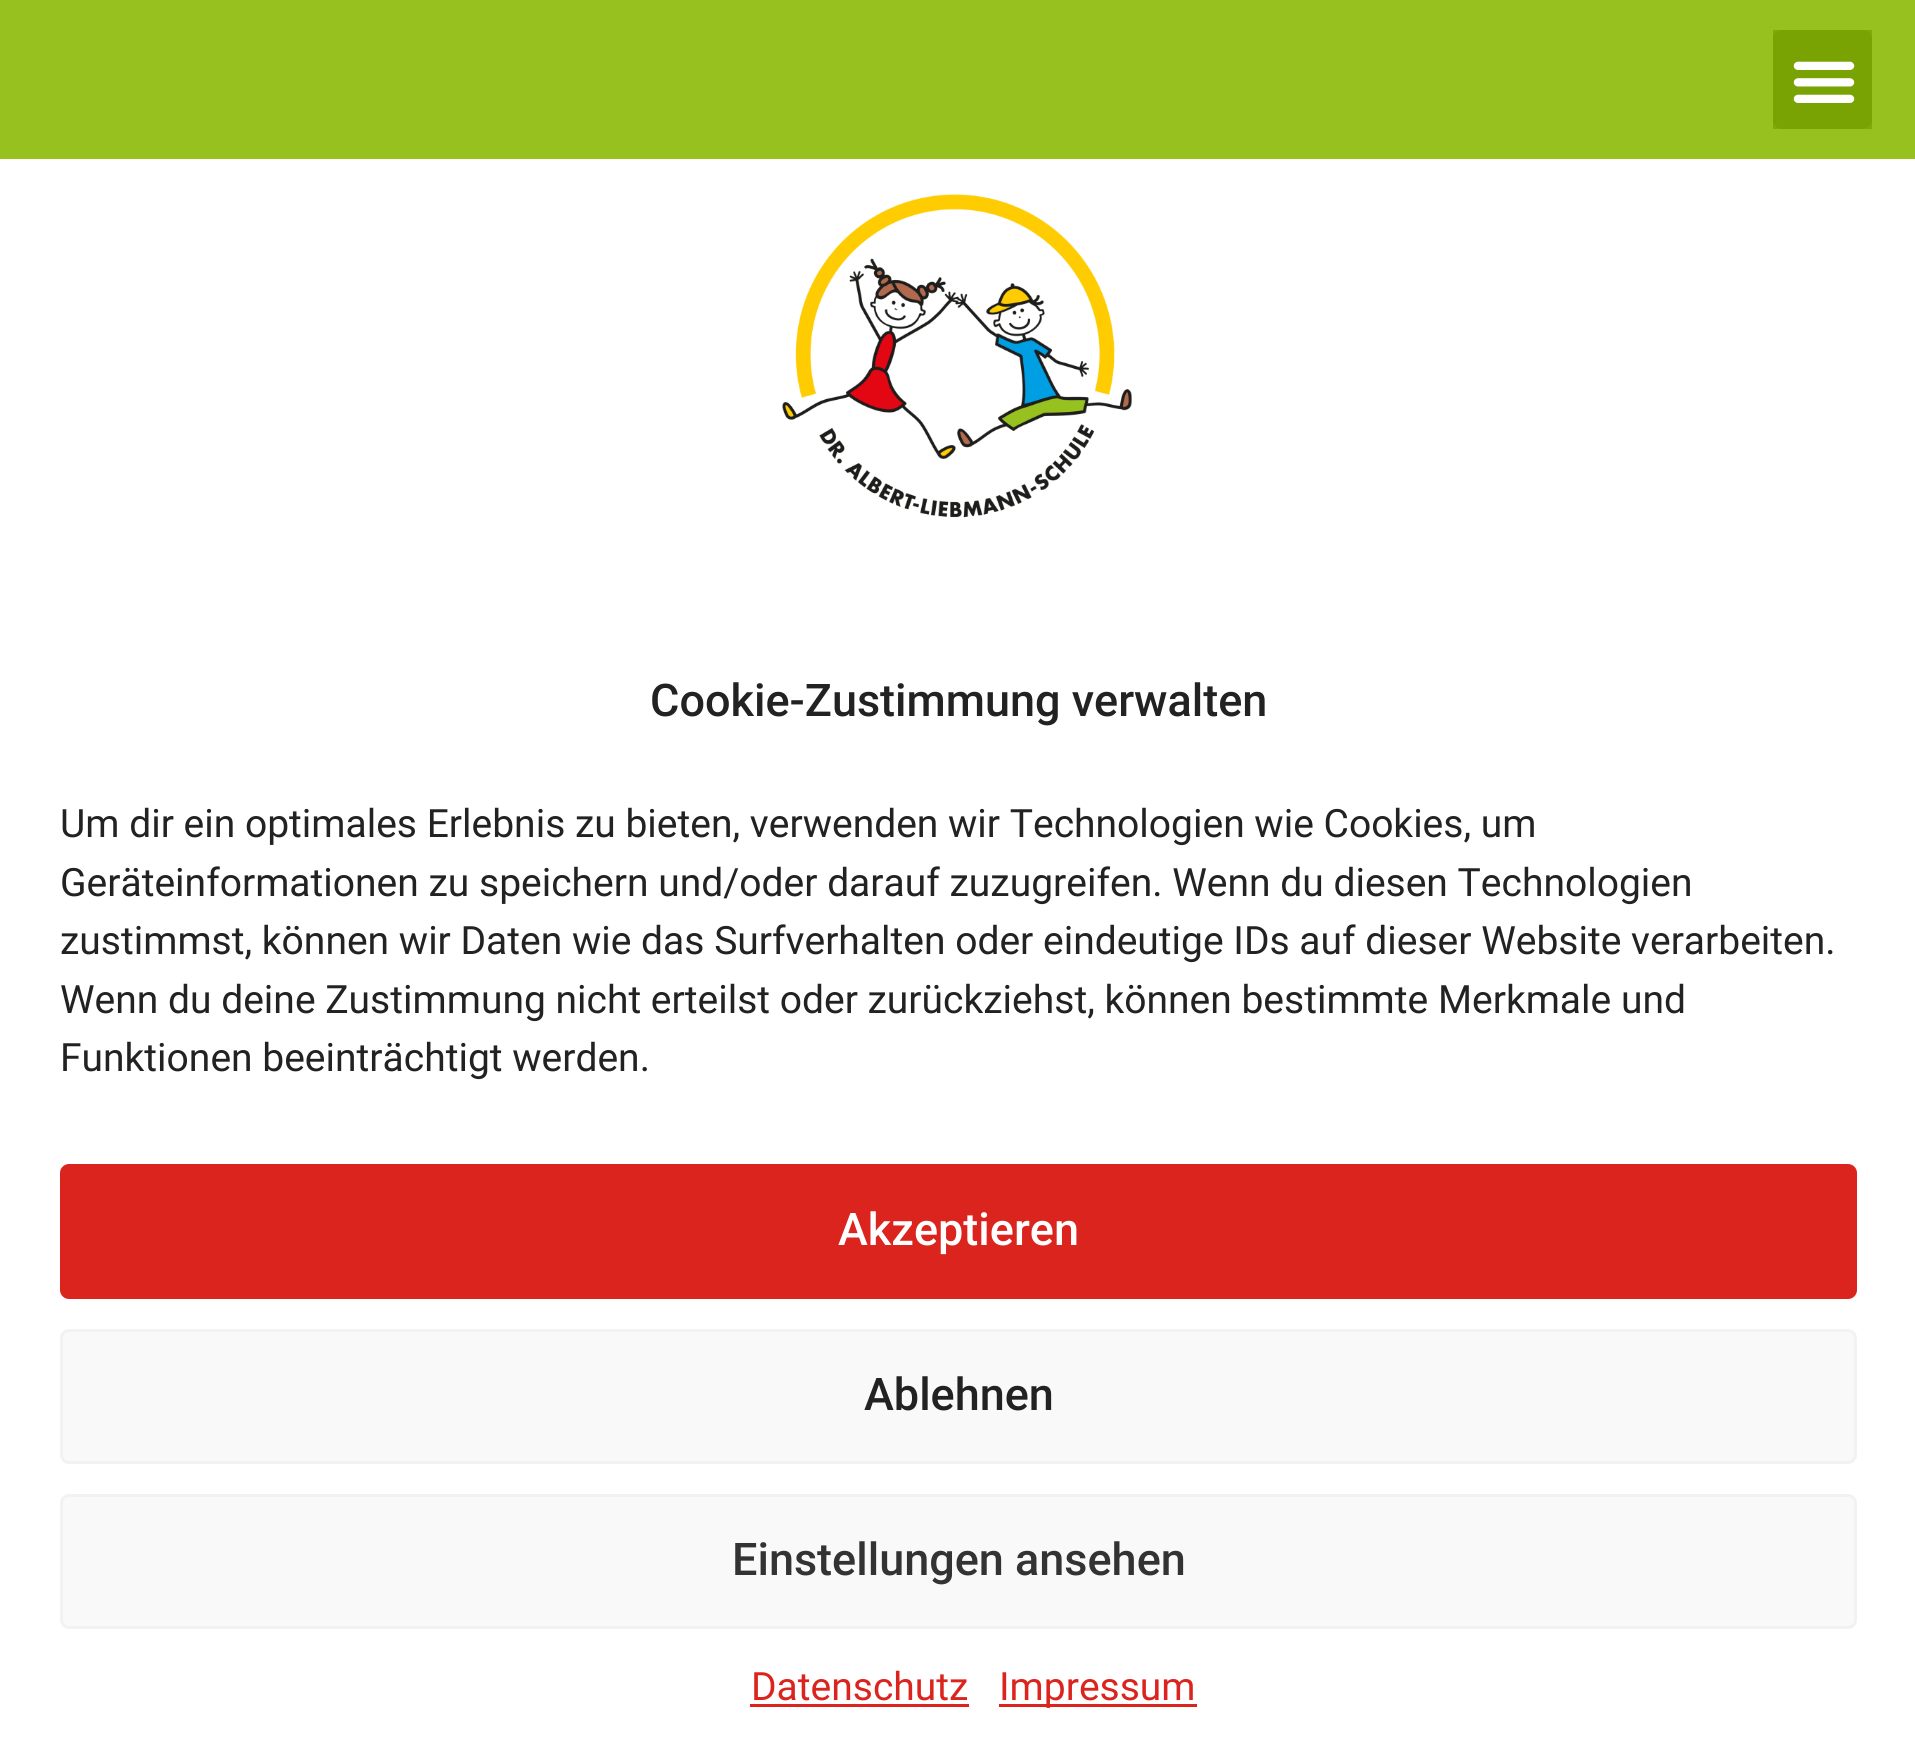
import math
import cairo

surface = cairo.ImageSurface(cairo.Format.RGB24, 1915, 1759)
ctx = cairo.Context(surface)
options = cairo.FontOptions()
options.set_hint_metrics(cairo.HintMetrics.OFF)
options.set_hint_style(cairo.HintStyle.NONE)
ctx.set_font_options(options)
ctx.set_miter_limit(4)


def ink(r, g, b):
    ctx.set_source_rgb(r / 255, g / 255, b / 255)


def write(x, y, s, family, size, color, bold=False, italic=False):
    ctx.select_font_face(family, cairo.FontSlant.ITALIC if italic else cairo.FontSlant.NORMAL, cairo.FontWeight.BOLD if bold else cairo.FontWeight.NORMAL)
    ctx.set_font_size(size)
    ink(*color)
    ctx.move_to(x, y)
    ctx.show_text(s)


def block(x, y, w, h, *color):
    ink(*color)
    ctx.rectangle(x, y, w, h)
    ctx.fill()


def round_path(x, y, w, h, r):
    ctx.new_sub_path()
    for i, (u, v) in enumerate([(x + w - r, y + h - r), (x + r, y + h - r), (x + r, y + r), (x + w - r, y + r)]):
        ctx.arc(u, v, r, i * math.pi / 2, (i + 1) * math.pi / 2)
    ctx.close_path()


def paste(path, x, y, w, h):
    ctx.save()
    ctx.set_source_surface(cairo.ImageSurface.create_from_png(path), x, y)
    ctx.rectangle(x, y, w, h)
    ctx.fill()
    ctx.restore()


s1 = dict(family="Roboto Medium", size=45, color=(34, 34, 34))
s2 = dict(family="Roboto", size=39, color=(34, 34, 34))
s3 = dict(family="Roboto Medium", size=45, color=(255, 255, 255))
s4 = dict(family="Roboto Medium", size=45, color=(51, 51, 51))
s5 = dict(family="Roboto", size=39, color=(218, 36, 29))

ink(255, 255, 255)
ctx.paint()
block(0, 0, 1915, 159, 150, 193, 31)
block(1773, 30, 99, 99, 127, 172, 2)
ink(121, 163, 2)
round_path(1773, 30, 99, 99, 9)
ctx.fill()
paste("pic1.png", 1793, 61, 62, 42)
paste("pic2.png", 782, 194, 350, 324)
write(650, 716, "Cookie-Zustimmung verwalten", **s1)
write(60, 837, "Um dir ein optimales Erlebnis zu bieten, verwenden wir Technologien wie Cookies, um", **s2)
write(60, 896, "Geräteinformationen zu speichern und/oder darauf zuzugreifen. Wenn du diesen Technologien", **s2)
write(60, 954, "zustimmst, können wir Daten wie das Surfverhalten oder eindeutige IDs auf dieser Website verarbeiten.", **s2)
write(60, 1013, "Wenn du deine Zustimmung nicht erteilst oder zurückziehst, können bestimmte Merkmale und", **s2)
write(60, 1071, "Funktionen beeinträchtigt werden.", **s2)
ink(218, 36, 29)
round_path(61.5, 1165.5, 1794, 132, 7.5)
ctx.fill_preserve()
ctx.set_line_width(3)
ctx.stroke()
write(838, 1245, "Akzeptieren", **s3)
ink(249, 249, 249)
round_path(61.5, 1330.5, 1794, 132, 7.5)
ctx.fill_preserve()
ink(242, 242, 242)
ctx.stroke()
write(864, 1410, "Ablehnen", **s1)
ink(249, 249, 249)
round_path(61.5, 1495.5, 1794, 132, 7.5)
ctx.fill_preserve()
ink(242, 242, 242)
ctx.stroke()
write(732, 1575, "Einstellungen ansehen", **s4)
write(751, 1700, "Datenschutz", **s5)
block(750, 1704, 219, 3, 218, 36, 29)
block(999, 1704, 198, 3, 218, 36, 29)
write(999, 1700, "Impressum", **s5)
surface.write_to_png("screenshot.png")
